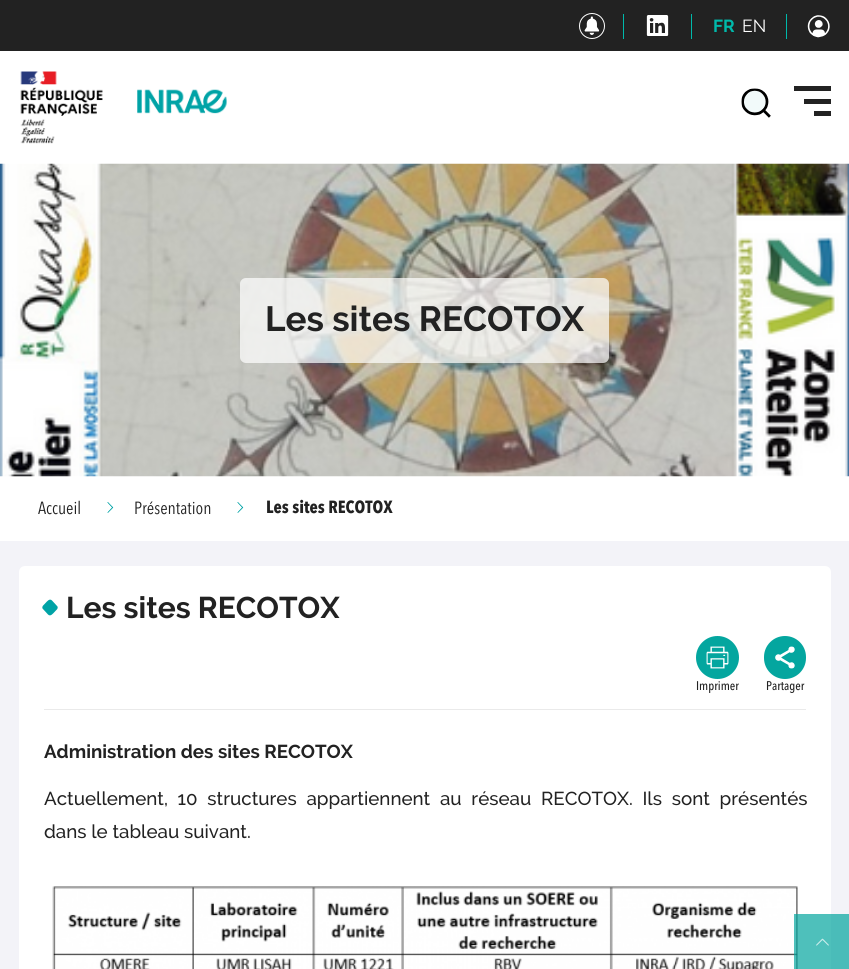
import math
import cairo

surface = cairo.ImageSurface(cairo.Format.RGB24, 849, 969)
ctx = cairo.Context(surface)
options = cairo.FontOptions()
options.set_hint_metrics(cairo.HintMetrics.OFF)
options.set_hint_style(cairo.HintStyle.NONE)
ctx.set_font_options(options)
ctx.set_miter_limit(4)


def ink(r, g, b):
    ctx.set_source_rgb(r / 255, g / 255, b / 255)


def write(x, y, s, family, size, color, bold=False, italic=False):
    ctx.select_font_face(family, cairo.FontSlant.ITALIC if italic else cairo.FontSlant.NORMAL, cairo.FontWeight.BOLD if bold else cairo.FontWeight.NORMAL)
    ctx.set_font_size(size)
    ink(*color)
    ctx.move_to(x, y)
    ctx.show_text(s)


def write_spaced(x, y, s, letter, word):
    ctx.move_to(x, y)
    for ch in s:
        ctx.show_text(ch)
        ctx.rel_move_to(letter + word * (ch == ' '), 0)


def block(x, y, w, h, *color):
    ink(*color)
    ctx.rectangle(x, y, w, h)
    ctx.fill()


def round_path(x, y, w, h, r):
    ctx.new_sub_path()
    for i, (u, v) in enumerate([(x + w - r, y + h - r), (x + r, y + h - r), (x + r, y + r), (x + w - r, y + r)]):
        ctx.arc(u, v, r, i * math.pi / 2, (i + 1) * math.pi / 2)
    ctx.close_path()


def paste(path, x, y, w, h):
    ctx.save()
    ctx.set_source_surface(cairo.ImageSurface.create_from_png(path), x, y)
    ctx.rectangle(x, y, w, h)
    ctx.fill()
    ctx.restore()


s1 = dict(family="Raleway", size=17.5, color=(0, 185, 171), bold=True)
s2 = dict(family="Raleway", size=17.5, color=(255, 255, 255))
s3 = dict(family="Raleway", size=35, color=(34, 34, 34), bold=True)
s4 = dict(family="Avenir Next", size=17.5, color=(34, 34, 34))
s5 = dict(family="Avenir Next", size=17.5, color=(34, 34, 34), bold=True)
s6 = dict(family="Raleway", size=30, color=(34, 34, 34), bold=True)
s7 = dict(family="Avenir Next Medium", size=12.5, color=(34, 34, 34))
s8 = dict(family="Raleway", size=18.75, color=(34, 34, 34), bold=True)
s9 = dict(family="Raleway Medium", size=18.75, color=(34, 34, 34))

ink(255, 255, 255)
ctx.paint()
block(0, 0, 849, 51, 34, 34, 34)
ctx.arc(592, 26, 12.5, 0, 2 * math.pi)
ink(255, 255, 255)
ctx.set_line_width(1)
ctx.stroke()
paste("pic1.png", 584, 16, 16, 19)
block(623, 14, 1, 25, 0, 185, 171)
paste("pic2.png", 646, 15, 23, 21)
block(691, 14, 1, 25, 0, 185, 171)
write(713, 32, "FR", **s1)
write(742, 32, "EN", **s2)
block(786, 14, 1, 25, 0, 185, 171)
paste("pic3.png", 807, 15, 23, 23)
paste("pic4.png", 20, 71, 207, 73)
paste("pic5.png", 741, 88, 30, 30)
block(794, 86, 37, 5, 34, 34, 34)
block(804, 99, 27, 5, 34, 34, 34)
block(814, 111, 17, 5, 34, 34, 34)
paste("pic6.png", 0, 163, 849, 314)
ctx.set_source_rgba(1, 1, 1, 0.7)
round_path(240, 278, 369, 85, 6)
ctx.fill()
write(265, 331, "Les sites RECOTOX", **s3)
write(38, 514, "Accueil", **s4)
paste("pic7.png", 107, 502, 7, 11)
write(134, 514, "Présentation", **s4)
paste("pic7.png", 237, 502, 7, 11)
write(266, 513, "Les sites RECOTOX", **s5)
block(0, 541, 849, 428, 243, 243, 248)
ink(255, 255, 255)
round_path(19, 566, 812, 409, 6)
ctx.fill()
block(44, 709, 762, 1, 234, 234, 234)
ink(0, 163, 166)
ctx.new_path()
ctx.move_to(52, 600.5)
ctx.line_to(57.5, 606.5)
ctx.curve_to(58.5, 609, 55.5, 610.5, 54.5, 612)
ctx.curve_to(53, 613.5, 50.5, 617, 48, 614.5)
ctx.line_to(42.5, 608.5)
ctx.curve_to(41.5, 606, 44.5, 604.5, 45.5, 603)
ctx.curve_to(47, 601.5, 49.5, 598, 52, 600.5)
ctx.close_path()
ctx.fill()
write(66, 618, "Les sites RECOTOX", **s6)
ink(4, 166, 159)
ctx.new_path()
ctx.arc(717.5, 657.5, 21.5, 0, 2 * math.pi)
ctx.fill()
paste("pic8.png", 706, 646, 23, 23)
write(696, 690, "Imprimer", **s7)
ink(4, 166, 159)
round_path(764, 636, 42, 43, 21)
ctx.fill()
paste("pic9.png", 775, 646, 20, 23)
write(766, 690, "Partager", **s7)
write(44, 758, "Administration des sites RECOTOX", **s8)
ctx.select_font_face("Raleway Medium")
write_spaced(44, 805, "Actuellement, 10 structures appartiennent au réseau RECOTOX. Ils sont présentés", 0, 5)
write(44, 838, "dans le tableau suivant.", **s9)
paste("pic10.png", 52, 886, 746, 83)
ctx.set_source_rgba(0.016, 0.651, 0.624, 0.7)
ctx.rectangle(794, 914, 55, 55)
ctx.fill()
paste("pic11.png", 816, 938, 13, 8)
surface.write_to_png("screenshot.png")
